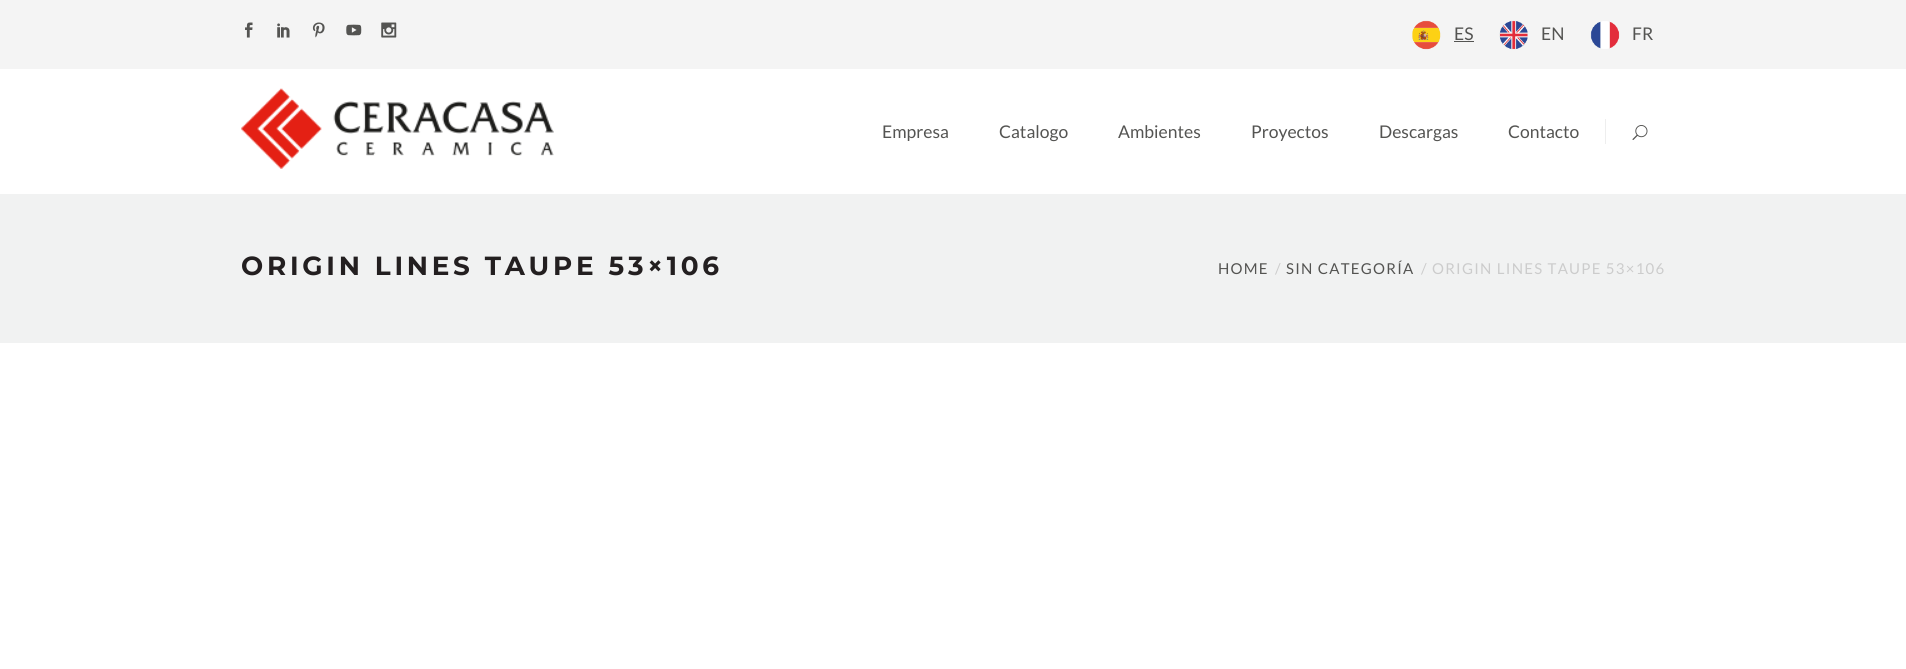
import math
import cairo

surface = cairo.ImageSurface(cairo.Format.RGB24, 1906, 669)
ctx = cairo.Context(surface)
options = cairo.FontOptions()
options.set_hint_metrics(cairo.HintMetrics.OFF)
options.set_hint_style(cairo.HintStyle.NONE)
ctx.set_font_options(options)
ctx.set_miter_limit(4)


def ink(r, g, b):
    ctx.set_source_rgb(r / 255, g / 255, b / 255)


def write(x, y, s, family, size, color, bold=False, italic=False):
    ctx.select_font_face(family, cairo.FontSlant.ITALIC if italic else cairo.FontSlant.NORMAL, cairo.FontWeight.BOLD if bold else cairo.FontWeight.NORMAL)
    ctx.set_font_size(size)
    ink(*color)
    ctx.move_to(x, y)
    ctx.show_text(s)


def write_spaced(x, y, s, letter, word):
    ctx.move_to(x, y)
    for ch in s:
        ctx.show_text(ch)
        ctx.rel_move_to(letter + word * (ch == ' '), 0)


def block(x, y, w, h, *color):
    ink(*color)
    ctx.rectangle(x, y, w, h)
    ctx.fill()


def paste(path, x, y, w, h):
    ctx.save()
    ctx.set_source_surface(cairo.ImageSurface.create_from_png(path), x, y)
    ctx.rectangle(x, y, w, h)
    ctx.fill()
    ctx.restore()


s1 = dict(family="Lato", size=17.5, color=(84, 84, 82))

ink(255, 255, 255)
ctx.paint()
block(0, 0, 1906, 69, 244, 244, 244)
paste("pic1.png", 245, 22, 8, 16)
paste("pic2.png", 277, 23, 13, 15)
paste("pic3.png", 312, 22, 13, 16)
paste("pic4.png", 346, 24, 16, 12)
paste("pic5.png", 381, 22, 16, 16)
paste("pic6.png", 1412, 20, 29, 30)
write(1454, 40, "ES", **s1)
block(1454, 41, 20, 1, 84, 84, 82)
paste("pic7.png", 1499, 20, 29, 30)
write(1541, 40, "EN", **s1)
paste("pic8.png", 1590, 21, 30, 28)
write(1632, 40, "FR", **s1)
paste("pic9.png", 241, 88, 313, 81)
write(882, 138, "Empresa", **s1)
write(999, 138, "Catalogo", **s1)
write(1118, 138, "Ambientes", **s1)
write(1251, 138, "Proyectos", **s1)
write(1379, 138, "Descargas", **s1)
write(1508, 138, "Contacto", **s1)
block(1605, 119, 1, 25, 238, 238, 238)
paste("pic10.png", 1632, 125, 16, 15)
block(0, 194, 1906, 149, 241, 242, 242)
ctx.select_font_face("Montserrat", cairo.FontSlant.NORMAL, cairo.FontWeight.BOLD)
ctx.set_font_size(26.25)
ink(35, 31, 32)
write_spaced(241, 275, "ORIGIN LINES TAUPE 53×106", 3.75, 0)
ctx.select_font_face("Lato")
ctx.set_font_size(15)
ink(84, 84, 82)
write_spaced(1218, 274, "HOME", 1.25, 0)
ink(204, 204, 204)
write_spaced(1275, 274, "/", 1.25, 0)
ink(84, 84, 82)
write_spaced(1286, 274, "SIN CATEGORÍA", 1.25, 0)
ink(204, 204, 204)
write_spaced(1421, 274, "/ ORIGIN LINES TAUPE 53×106", 1.25, 0)
surface.write_to_png("screenshot.png")
